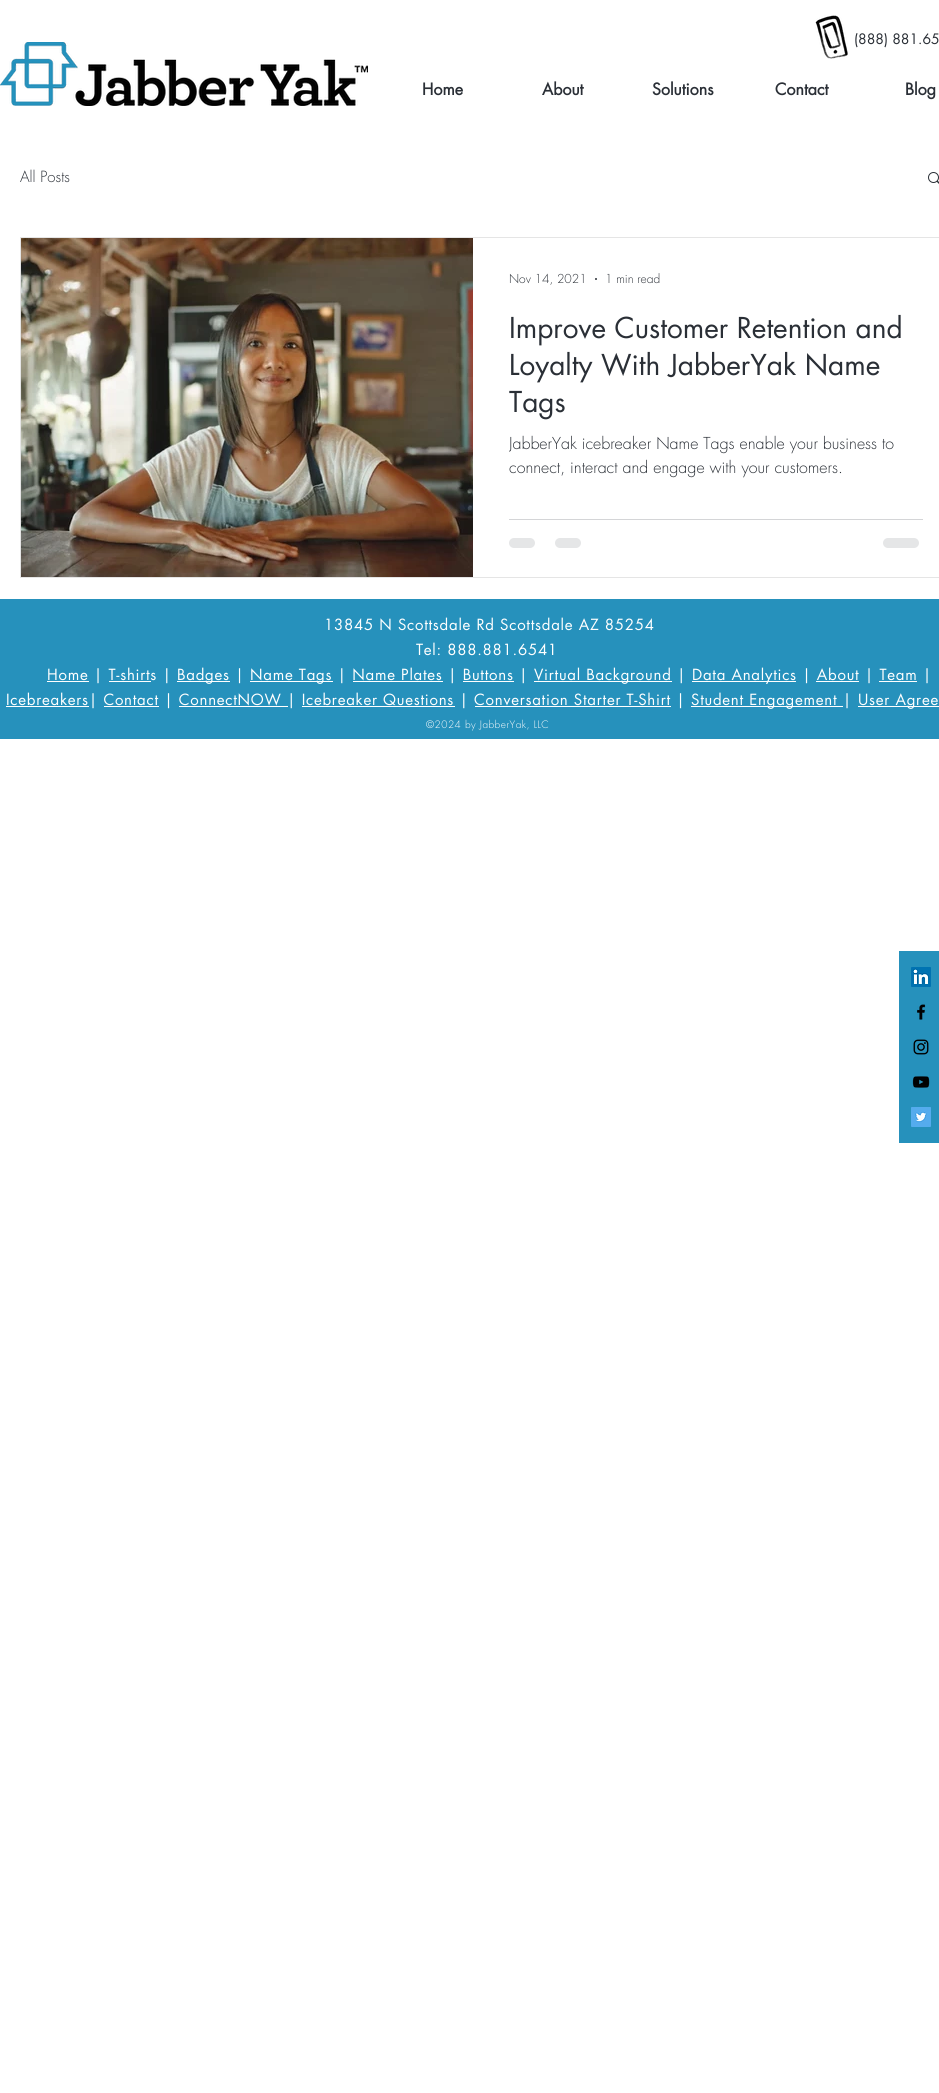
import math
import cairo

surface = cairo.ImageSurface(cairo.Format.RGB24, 939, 2093)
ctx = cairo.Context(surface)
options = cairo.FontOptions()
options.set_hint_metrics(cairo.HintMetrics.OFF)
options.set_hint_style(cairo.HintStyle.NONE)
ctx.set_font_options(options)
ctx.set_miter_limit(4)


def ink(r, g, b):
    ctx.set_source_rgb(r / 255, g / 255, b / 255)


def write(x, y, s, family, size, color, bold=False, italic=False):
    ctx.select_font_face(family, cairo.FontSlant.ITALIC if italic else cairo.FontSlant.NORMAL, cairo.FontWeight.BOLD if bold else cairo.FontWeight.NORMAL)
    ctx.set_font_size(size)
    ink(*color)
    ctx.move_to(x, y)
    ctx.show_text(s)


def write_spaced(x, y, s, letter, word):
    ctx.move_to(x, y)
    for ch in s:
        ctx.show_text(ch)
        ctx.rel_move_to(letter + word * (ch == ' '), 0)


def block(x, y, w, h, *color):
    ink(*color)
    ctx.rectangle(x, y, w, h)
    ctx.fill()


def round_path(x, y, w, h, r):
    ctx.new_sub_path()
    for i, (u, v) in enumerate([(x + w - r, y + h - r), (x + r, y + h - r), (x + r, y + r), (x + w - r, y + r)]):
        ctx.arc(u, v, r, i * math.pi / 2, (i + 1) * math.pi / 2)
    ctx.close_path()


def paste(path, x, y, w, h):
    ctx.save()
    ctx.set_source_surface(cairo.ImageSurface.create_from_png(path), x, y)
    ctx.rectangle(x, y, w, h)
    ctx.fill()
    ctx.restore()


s1 = dict(family="futura", size=14, color=(42, 47, 54))
s2 = dict(family="futura", size=16, color=(42, 47, 54), bold=True)
s3 = dict(family="futura Light", size=15, color=(42, 47, 54))
s4 = dict(family="futura Light", size=12, color=(42, 47, 54))
s5 = dict(family="futura", size=28, color=(42, 47, 54))
s6 = dict(family="futura Light", size=16, color=(42, 47, 54))

ink(255, 255, 255)
ctx.paint()
paste("pic1.png", 815, 15, 33, 44)
write(854, 44, "(888) 881.65", **s1)
paste("pic2.png", 0, 42, 368, 64)
write(422, 95, "Home", **s2)
write(542, 95, "About", **s2)
write(652, 95, "Solutions", **s2)
write(775, 95, "Contact", **s2)
write(905, 95, "Blog", **s2)
write(20, 182, "All Posts", **s3)
paste("pic3.png", 928, 172, 11, 12)
ctx.rectangle(20.5, 237.5, 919, 340)
ink(229, 229, 229)
ctx.set_line_width(1)
ctx.stroke()
paste("pic4.png", 21, 238, 452, 339)
write(509, 283, "Nov 14, 2021", **s4)
ctx.new_path()
ctx.arc(596, 279, 1, 0, 2 * math.pi)
ctx.fill()
write(605, 283, "1 min read", **s4)
write(509, 338, "Improve Customer Retention and", **s5)
write(509, 375, "Loyalty With JabberYak Name", **s5)
write(509, 412, "Tags", **s5)
ctx.save()
ctx.rectangle(509, 432, 414, 48)
ctx.clip()
write(509, 449, "JabberYak icebreaker Name Tags enable your business to", **s6)
ctx.restore()
write(509, 473, "connect, interact and engage with your customers.", **s6)
block(509, 519, 414, 1, 212, 213, 215)
ink(229, 230, 231)
round_path(509, 538, 26, 10, 5)
ctx.fill()
round_path(555, 538, 26, 10, 5)
ctx.fill()
round_path(883, 538, 36, 10, 5)
ctx.fill()
block(0, 599, 939, 140, 38, 145, 188)
ctx.select_font_face("futura")
ctx.set_font_size(15)
ink(255, 255, 255)
write_spaced(324, 630, "13845 N Scottsdale Rd Scottsdale AZ 85254", 0.75, 0)
write_spaced(416, 655, "Tel: 888.881.6541", 0.75, 0)
block(47, 681, 42, 1, 255, 255, 255)
write_spaced(47, 680, "Home | T-shirts |", 0.75, 0)
block(109, 681, 42, 1, 255, 255, 255)
block(177, 681, 53, 1, 255, 255, 255)
write_spaced(177, 680, "Badges |", 0.75, 0)
block(250, 681, 83, 1, 255, 255, 255)
write_spaced(250, 680, "Name Tags | Name Plates | Buttons |", 0.75, 0)
block(353, 681, 90, 1, 255, 255, 255)
block(463, 681, 51, 1, 255, 255, 255)
block(534, 681, 138, 1, 255, 255, 255)
write_spaced(534, 680, "Virtual Background |", 0.75, 0)
block(692, 681, 104, 1, 255, 255, 255)
write_spaced(692, 680, "Data Analytics | About | Team |", 0.75, 0)
block(816, 681, 43, 1, 255, 255, 255)
block(879, 681, 38, 1, 255, 255, 255)
block(6, 706, 83, 1, 255, 255, 255)
write_spaced(6, 705, "Icebreakers| Contact | ConnectNOW | Icebreaker Questions | Conversation Starter T-Shirt |", 0.75, 0)
block(104, 706, 55, 1, 255, 255, 255)
block(179, 706, 109, 1, 255, 255, 255)
block(302, 706, 153, 1, 255, 255, 255)
block(475, 706, 196, 1, 255, 255, 255)
block(691, 706, 152, 1, 255, 255, 255)
write_spaced(691, 705, "Student Engagement |", 0.75, 0)
block(858, 706, 81, 1, 255, 255, 255)
write_spaced(858, 705, "User Agree", 0.75, 0)
ctx.select_font_face("futura Light")
ctx.set_font_size(10)
write_spaced(426, 728, "©2024 by JabberYak, LLC", 0.5, 0)
block(899, 951, 40, 192, 38, 145, 188)
paste("pic5.png", 911, 967, 20, 20)
paste("pic6.png", 917, 1004, 9, 16)
paste("pic7.png", 913, 1039, 16, 16)
paste("pic8.png", 912, 1076, 18, 12)
paste("pic9.png", 911, 1107, 20, 20)
surface.write_to_png("screenshot.png")
